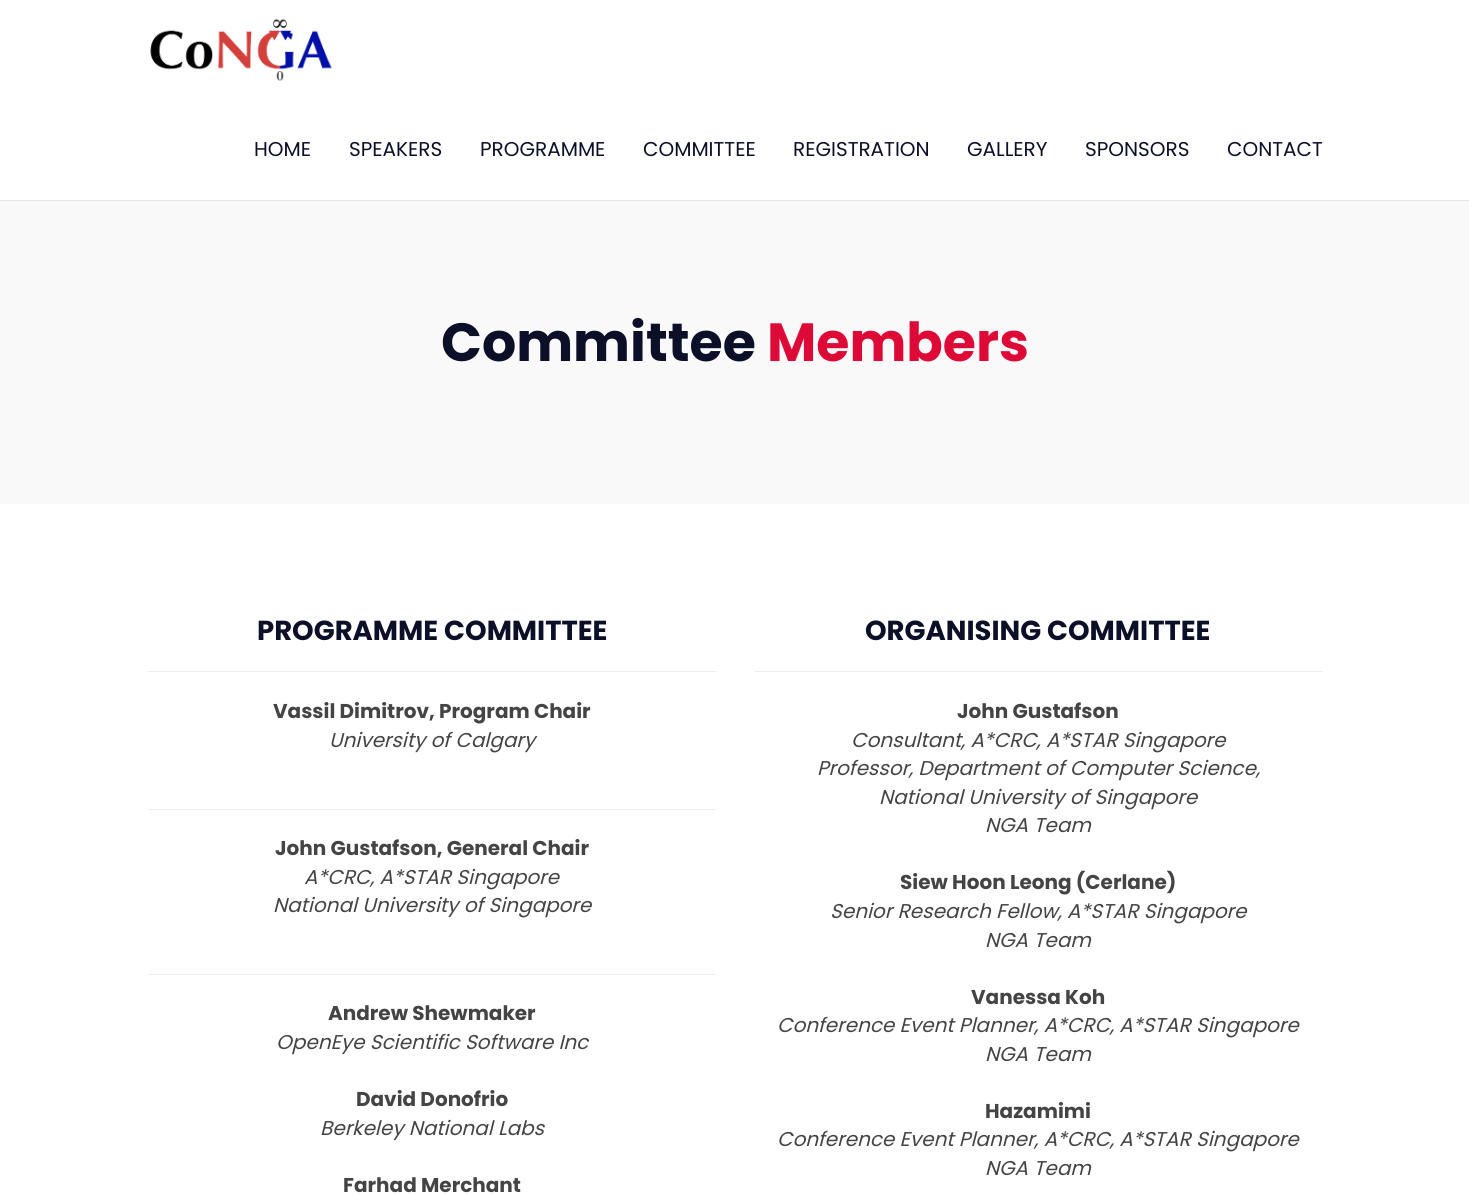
import math
import cairo

surface = cairo.ImageSurface(cairo.Format.RGB24, 1469, 1194)
ctx = cairo.Context(surface)
options = cairo.FontOptions()
options.set_hint_metrics(cairo.HintMetrics.OFF)
options.set_hint_style(cairo.HintStyle.NONE)
ctx.set_font_options(options)
ctx.set_miter_limit(4)


def ink(r, g, b):
    ctx.set_source_rgb(r / 255, g / 255, b / 255)


def write(x, y, s, family, size, color, bold=False, italic=False):
    ctx.select_font_face(family, cairo.FontSlant.ITALIC if italic else cairo.FontSlant.NORMAL, cairo.FontWeight.BOLD if bold else cairo.FontWeight.NORMAL)
    ctx.set_font_size(size)
    ink(*color)
    ctx.move_to(x, y)
    ctx.show_text(s)


def block(x, y, w, h, *color):
    ink(*color)
    ctx.rectangle(x, y, w, h)
    ctx.fill()


def paste(path, x, y, w, h):
    ctx.save()
    ctx.set_source_surface(cairo.ImageSurface.create_from_png(path), x, y)
    ctx.rectangle(x, y, w, h)
    ctx.fill()
    ctx.restore()


s1 = dict(family="Poppins", size=20, color=(11, 15, 40))
s2 = dict(family="Poppins", size=53.75, color=(11, 15, 40), bold=True)
s3 = dict(family="Poppins", size=53.75, color=(221, 10, 55), bold=True)
s4 = dict(family="Poppins", size=27.5, color=(11, 15, 40), bold=True)
s5 = dict(family="Poppins", size=20, color=(68, 68, 68), bold=True)
s6 = dict(family="Poppins", size=20, color=(68, 68, 68), italic=True)

ink(255, 255, 255)
ctx.paint()
block(0, 200, 1469, 1, 230, 230, 230)
paste("pic1.png", 150, 18, 182, 63)
write(254, 156, "HOME", **s1)
write(349, 156, "SPEAKERS", **s1)
write(480, 156, "PROGRAMME", **s1)
write(643, 156, "COMMITTEE", **s1)
write(793, 156, "REGISTRATION", **s1)
write(967, 156, "GALLERY", **s1)
write(1085, 156, "SPONSORS", **s1)
write(1227, 156, "CONTACT", **s1)
block(0, 201, 1469, 303, 249, 249, 250)
write(441, 361, "Committee", **s2)
write(767, 361, "Members", **s3)
write(257, 640, "PROGRAMME COMMITTEE", **s4)
block(148, 671, 568, 1, 238, 238, 238)
write(273, 718, "Vassil Dimitrov, Program Chair", **s5)
write(329, 747, "University of Calgary", **s6)
block(148, 809, 568, 1, 238, 238, 238)
write(275, 855, "John Gustafson, General Chair", **s5)
write(304, 884, "A*CRC, A*STAR Singapore", **s6)
write(273, 912, "National University of Singapore", **s6)
block(148, 974, 568, 1, 238, 238, 238)
write(328, 1020, "Andrew Shewmaker", **s5)
write(276, 1049, "OpenEye Scientific Software Inc", **s6)
write(356, 1106, "David Donofrio", **s5)
write(320, 1135, "Berkeley National Labs", **s6)
write(343, 1192, "Farhad Merchant", **s5)
write(865, 640, "ORGANISING COMMITTEE", **s4)
block(754, 671, 569, 1, 238, 238, 238)
write(957, 718, "John Gustafson", **s5)
write(851, 747, "Consultant, A*CRC, A*STAR Singapore", **s6)
write(817, 775, "Professor, Department of Computer Science,", **s6)
write(879, 804, "National University of Singapore", **s6)
write(985, 832, "NGA Team", **s6)
write(900, 889, "Siew Hoon Leong (Cerlane)", **s5)
write(830, 918, "Senior Research Fellow, A*STAR Singapore", **s6)
write(985, 947, "NGA Team", **s6)
write(971, 1004, "Vanessa Koh", **s5)
write(777, 1032, "Conference Event Planner, A*CRC, A*STAR Singapore", **s6)
write(985, 1061, "NGA Team", **s6)
write(985, 1118, "Hazamimi", **s5)
write(777, 1146, "Conference Event Planner, A*CRC, A*STAR Singapore", **s6)
write(985, 1175, "NGA Team", **s6)
surface.write_to_png("screenshot.png")
